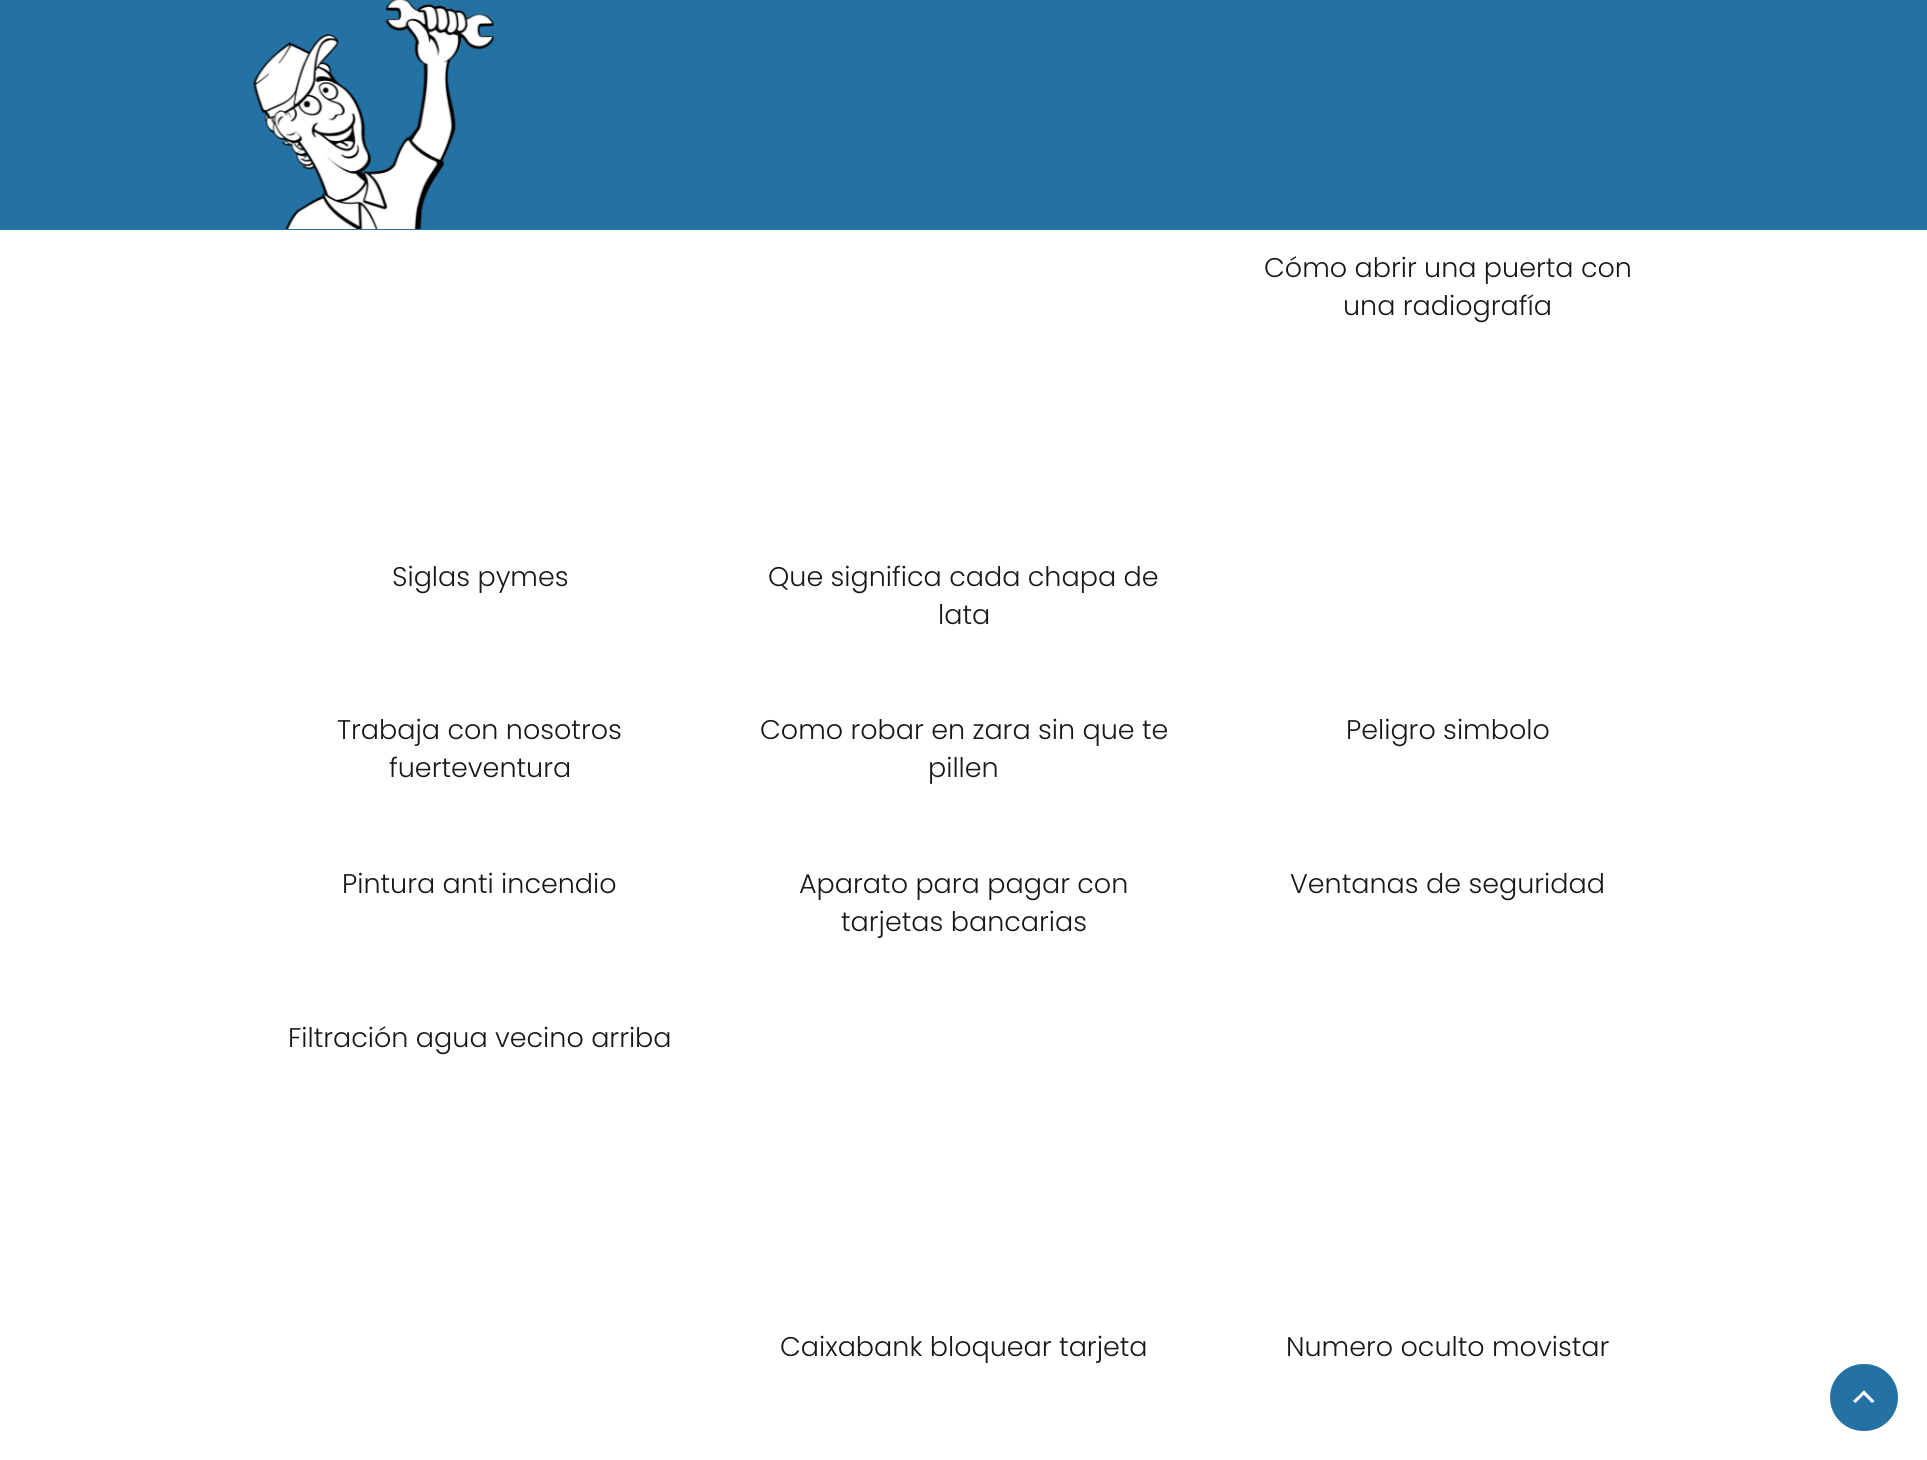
import math
import cairo

surface = cairo.ImageSurface(cairo.Format.RGB24, 1927, 1460)
ctx = cairo.Context(surface)
options = cairo.FontOptions()
options.set_hint_metrics(cairo.HintMetrics.OFF)
options.set_hint_style(cairo.HintStyle.NONE)
ctx.set_font_options(options)
ctx.set_miter_limit(4)


def ink(r, g, b):
    ctx.set_source_rgb(r / 255, g / 255, b / 255)


def write(x, y, s, family, size, color, bold=False, italic=False):
    ctx.select_font_face(family, cairo.FontSlant.ITALIC if italic else cairo.FontSlant.NORMAL, cairo.FontWeight.BOLD if bold else cairo.FontWeight.NORMAL)
    ctx.set_font_size(size)
    ink(*color)
    ctx.move_to(x, y)
    ctx.show_text(s)


def block(x, y, w, h, *color):
    ink(*color)
    ctx.rectangle(x, y, w, h)
    ctx.fill()


def round_path(x, y, w, h, r):
    ctx.new_sub_path()
    for i, (u, v) in enumerate([(x + w - r, y + h - r), (x + r, y + h - r), (x + r, y + r), (x + w - r, y + r)]):
        ctx.arc(u, v, r, i * math.pi / 2, (i + 1) * math.pi / 2)
    ctx.close_path()


def paste(path, x, y, w, h):
    ctx.save()
    ctx.set_source_surface(cairo.ImageSurface.create_from_png(path), x, y)
    ctx.rectangle(x, y, w, h)
    ctx.fill()
    ctx.restore()


s1 = dict(family="Poppins Light", size=27, color=(24, 24, 24))

ink(255, 255, 255)
ctx.paint()
block(0, 0, 1927, 230, 36, 113, 163)
paste("pic1.png", 253, 0, 241, 229)
write(1264, 277, "Cómo abrir una puerta con", **s1)
write(1343, 315, "una radiografía", **s1)
write(392, 586, "Siglas pymes", **s1)
write(768, 586, "Que significa cada chapa de", **s1)
write(938, 624, "lata", **s1)
write(337, 739, "Trabaja con nosotros", **s1)
write(389, 777, "fuerteventura", **s1)
write(760, 739, "Como robar en zara sin que te", **s1)
write(928, 777, "pillen", **s1)
write(1346, 739, "Peligro simbolo", **s1)
write(342, 893, "Pintura anti incendio", **s1)
write(799, 893, "Aparato para pagar con", **s1)
write(841, 931, "tarjetas bancarias", **s1)
write(1290, 893, "Ventanas de seguridad", **s1)
write(288, 1047, "Filtración agua vecino arriba", **s1)
write(780, 1356, "Caixabank bloquear tarjeta", **s1)
write(1286, 1356, "Numero oculto movistar", **s1)
ink(36, 113, 163)
round_path(1830, 1364, 68, 67, 33.5)
ctx.fill()
ink(255, 255, 255)
ctx.new_path()
ctx.move_to(1855.5, 1403)
ctx.line_to(1853, 1401)
ctx.line_to(1864, 1390.5)
ctx.line_to(1866, 1392.5)
ctx.close_path()
ctx.fill()
ctx.new_path()
ctx.move_to(1872, 1403)
ctx.line_to(1861.5, 1392.5)
ctx.line_to(1864, 1390.5)
ctx.line_to(1874.5, 1401)
ctx.close_path()
ctx.fill()
surface.write_to_png("screenshot.png")
